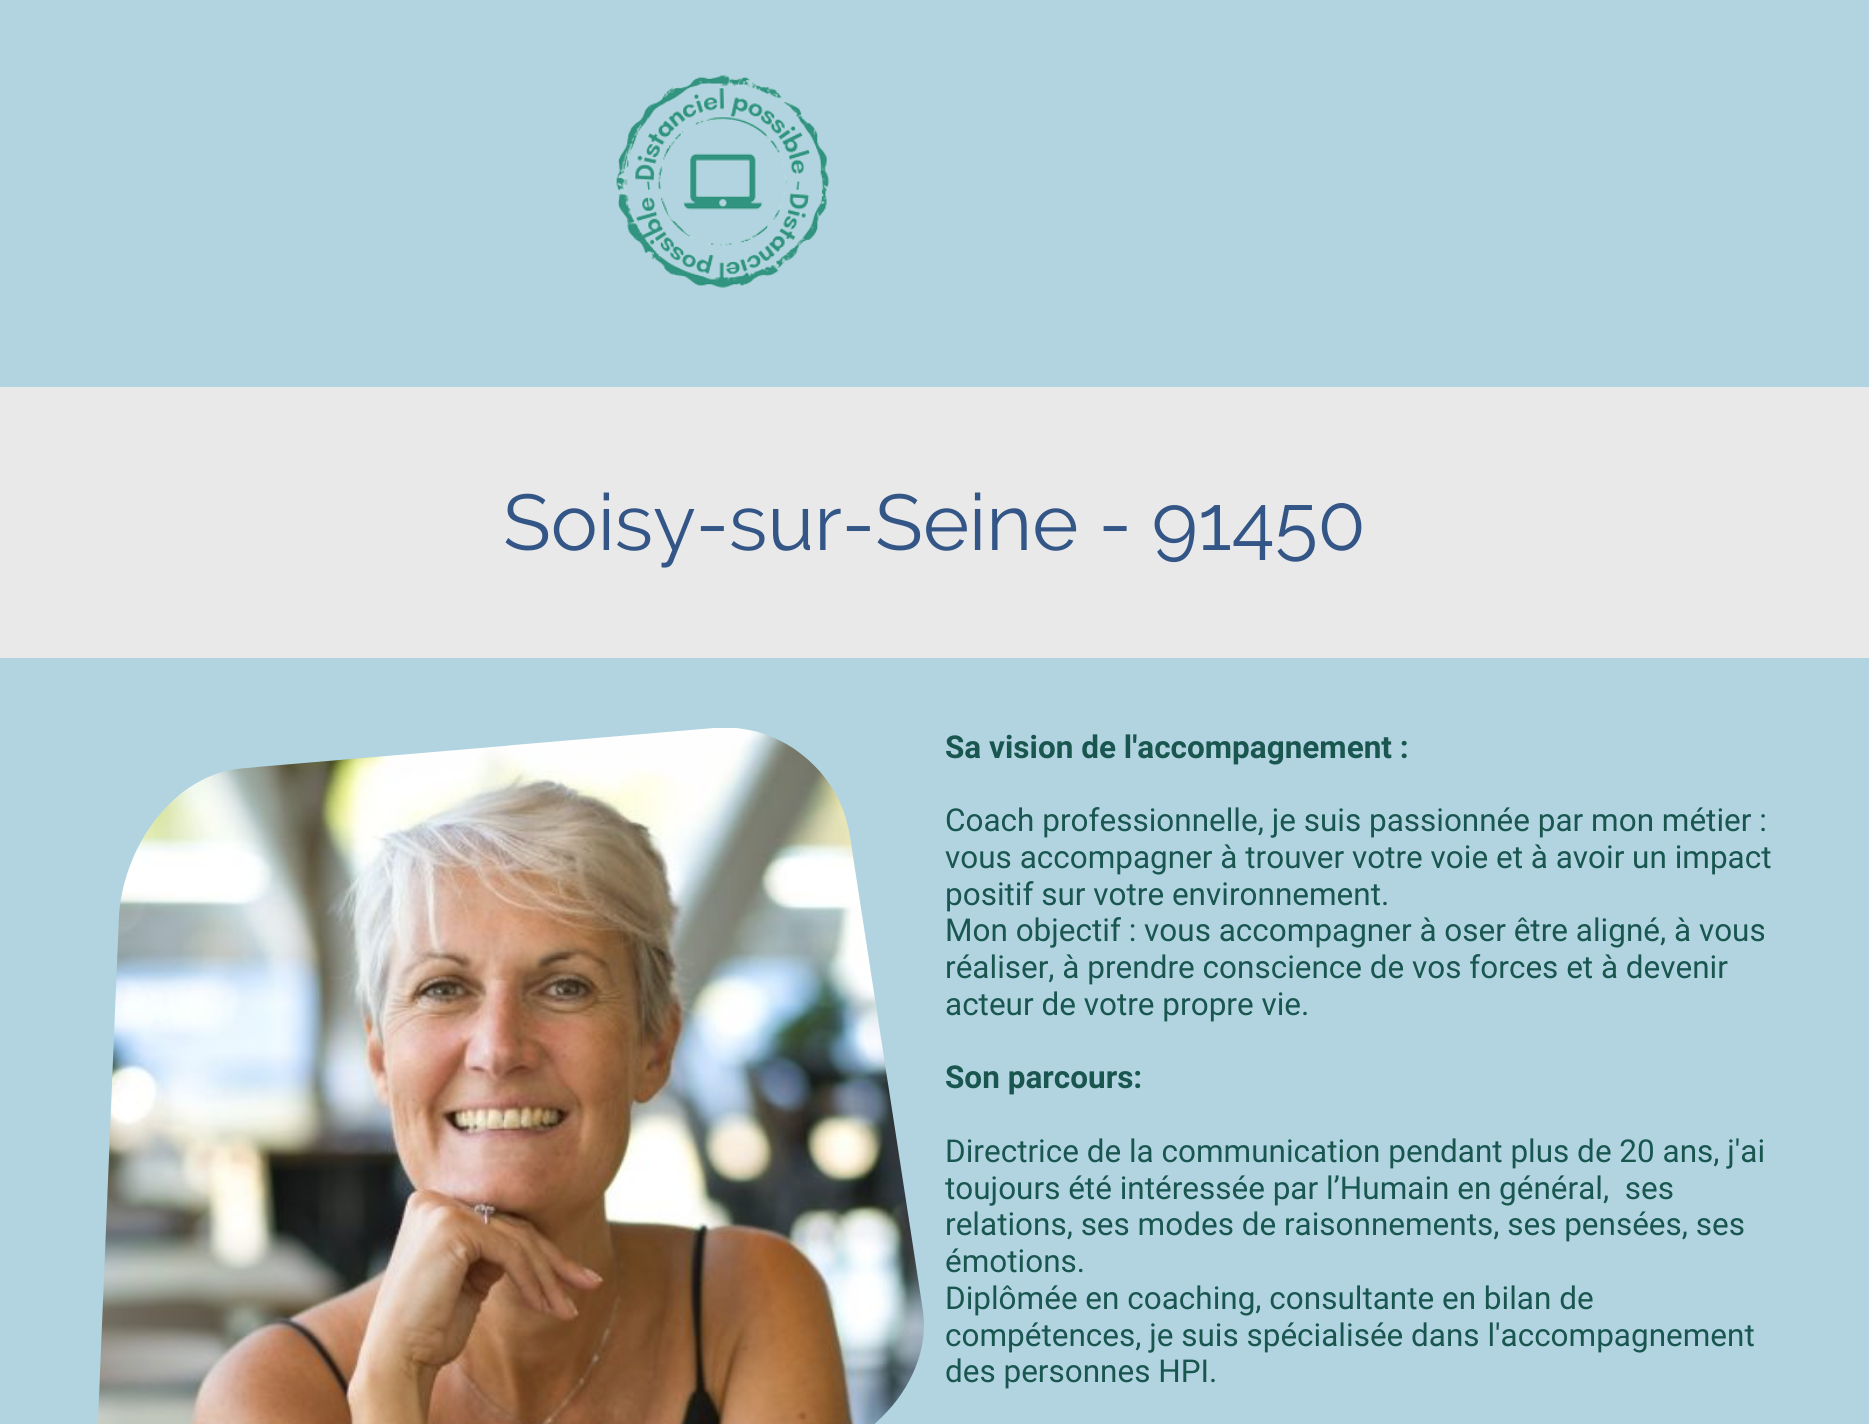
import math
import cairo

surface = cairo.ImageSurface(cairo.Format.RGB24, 1869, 1424)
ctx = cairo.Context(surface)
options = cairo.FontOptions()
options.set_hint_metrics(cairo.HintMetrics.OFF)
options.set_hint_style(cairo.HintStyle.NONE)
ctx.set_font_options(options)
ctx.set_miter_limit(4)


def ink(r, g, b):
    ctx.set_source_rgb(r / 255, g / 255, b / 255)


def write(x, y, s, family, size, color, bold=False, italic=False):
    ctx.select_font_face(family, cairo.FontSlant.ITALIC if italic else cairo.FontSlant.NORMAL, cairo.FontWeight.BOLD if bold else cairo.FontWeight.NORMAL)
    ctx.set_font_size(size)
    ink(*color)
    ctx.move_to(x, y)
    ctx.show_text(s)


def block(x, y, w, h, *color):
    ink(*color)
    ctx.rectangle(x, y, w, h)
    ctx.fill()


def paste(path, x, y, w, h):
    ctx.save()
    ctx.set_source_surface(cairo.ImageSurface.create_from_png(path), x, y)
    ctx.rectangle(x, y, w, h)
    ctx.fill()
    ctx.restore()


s1 = dict(family="Raleway", size=78.75, color=(51, 86, 135))
s2 = dict(family="Roboto", size=31.5, color=(25, 86, 80), bold=True)
s3 = dict(family="Roboto", size=31.5, color=(25, 86, 80))

ink(177, 212, 224)
ctx.paint()
paste("pic1.png", 615, 75, 214, 214)
block(0, 387, 1869, 271, 233, 233, 233)
write(503, 550, "Soisy-sur-Seine - 91450", **s1)
paste("pic2.png", 98, 728, 826, 696)
write(945, 758, "Sa vision de l'accompagnement :", **s2)
write(945, 831, "Coach professionnelle, je suis passionnée par mon métier :", **s3)
write(945, 868, "vous accompagner à trouver votre voie et à avoir un impact", **s3)
write(945, 905, "positif sur votre environnement.", **s3)
write(945, 941, "Mon objectif : vous accompagner à oser être aligné, à vous", **s3)
write(945, 978, "réaliser, à prendre conscience de vos forces et à devenir", **s3)
write(945, 1015, "acteur de votre propre vie.", **s3)
write(945, 1088, "Son parcours:", **s2)
write(945, 1162, "Directrice de la communication pendant plus de 20 ans, j'ai", **s3)
write(945, 1199, "toujours été intéressée par l’Humain en général,  ses", **s3)
write(945, 1235, "relations, ses modes de raisonnements, ses pensées, ses", **s3)
write(945, 1272, "émotions.", **s3)
write(945, 1309, "Diplômée en coaching, consultante en bilan de", **s3)
write(945, 1346, "compétences, je suis spécialisée dans l'accompagnement", **s3)
write(945, 1382, "des personnes HPI.", **s3)
surface.write_to_png("screenshot.png")
